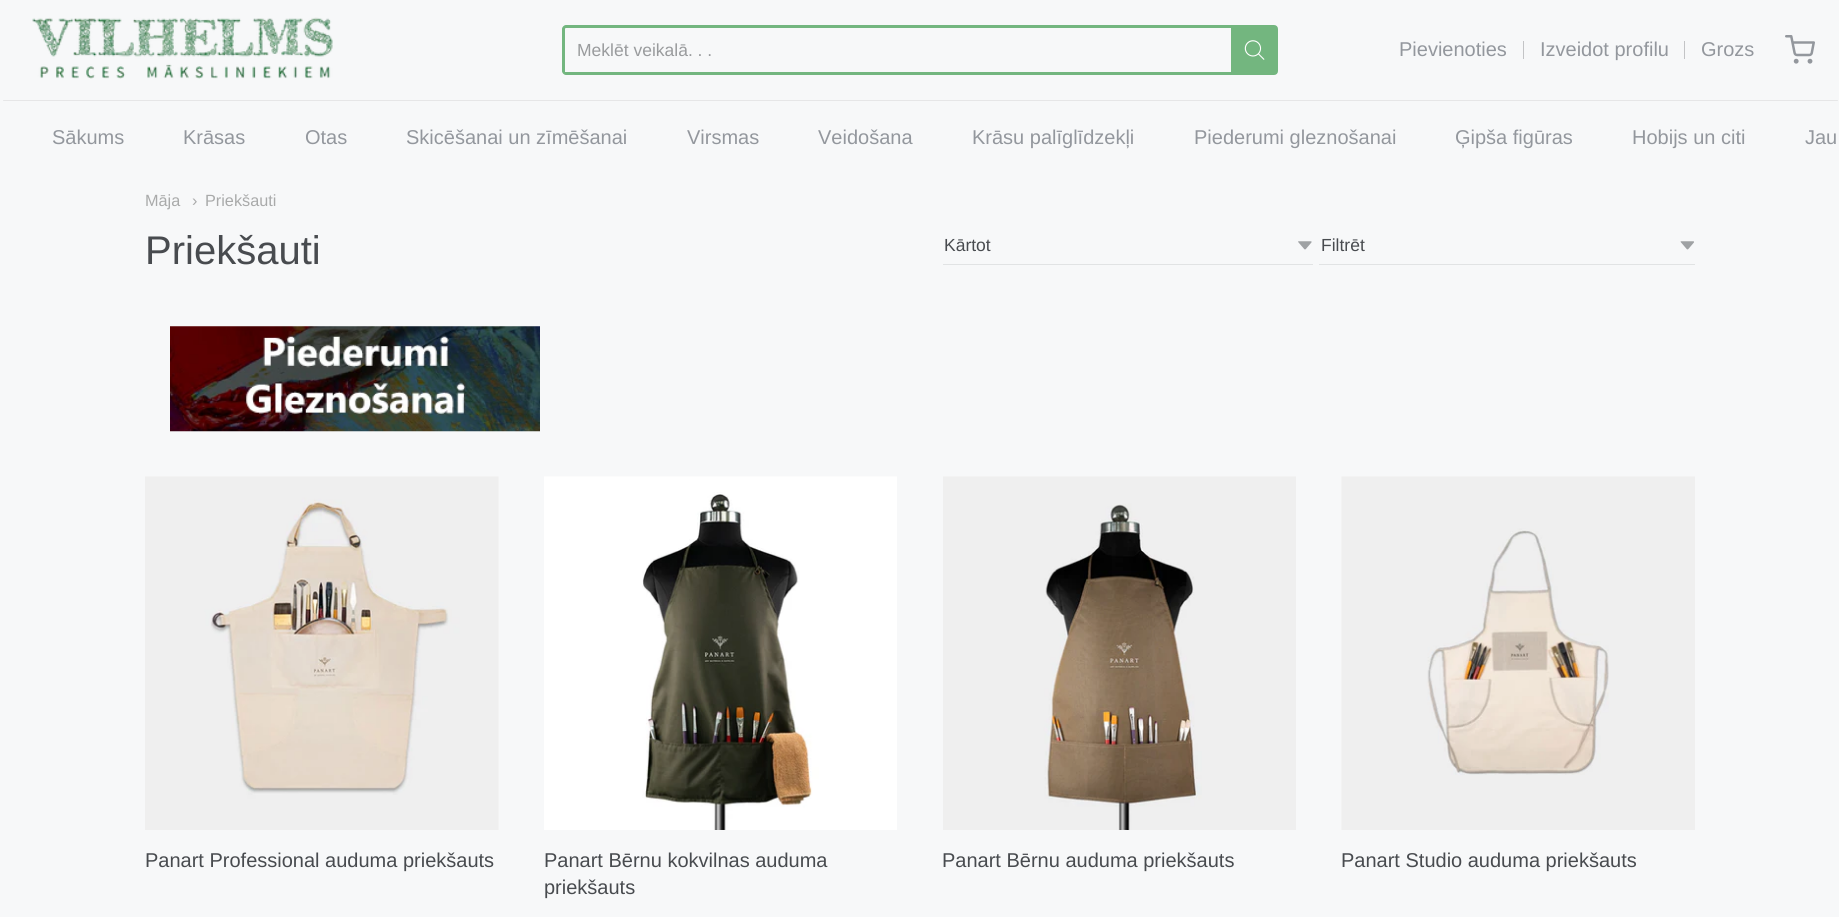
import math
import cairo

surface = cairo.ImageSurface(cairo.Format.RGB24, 1839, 917)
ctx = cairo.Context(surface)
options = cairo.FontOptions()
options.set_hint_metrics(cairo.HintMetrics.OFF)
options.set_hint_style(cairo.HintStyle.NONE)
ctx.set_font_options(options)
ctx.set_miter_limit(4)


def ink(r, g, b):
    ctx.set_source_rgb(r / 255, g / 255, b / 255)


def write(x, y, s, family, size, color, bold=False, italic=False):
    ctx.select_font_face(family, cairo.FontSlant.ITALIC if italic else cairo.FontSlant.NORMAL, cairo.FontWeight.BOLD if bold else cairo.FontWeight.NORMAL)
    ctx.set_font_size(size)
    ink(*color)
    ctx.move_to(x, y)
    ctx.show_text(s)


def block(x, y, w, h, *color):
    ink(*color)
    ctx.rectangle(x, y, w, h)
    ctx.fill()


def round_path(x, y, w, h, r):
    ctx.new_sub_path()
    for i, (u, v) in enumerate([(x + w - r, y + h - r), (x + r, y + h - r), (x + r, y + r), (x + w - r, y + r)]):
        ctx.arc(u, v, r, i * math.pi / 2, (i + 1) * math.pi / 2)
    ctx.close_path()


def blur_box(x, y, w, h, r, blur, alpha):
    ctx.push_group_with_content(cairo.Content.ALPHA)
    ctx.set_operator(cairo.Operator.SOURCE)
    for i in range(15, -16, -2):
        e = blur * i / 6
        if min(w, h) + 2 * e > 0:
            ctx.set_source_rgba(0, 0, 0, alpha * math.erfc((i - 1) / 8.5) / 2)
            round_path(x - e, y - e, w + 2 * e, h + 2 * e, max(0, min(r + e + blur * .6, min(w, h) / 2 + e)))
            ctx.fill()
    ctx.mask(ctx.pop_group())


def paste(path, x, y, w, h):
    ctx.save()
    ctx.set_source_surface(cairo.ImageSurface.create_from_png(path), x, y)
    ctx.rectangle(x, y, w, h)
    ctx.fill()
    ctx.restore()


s1 = dict(family="Liberation Sans", size=17.5, color=(153, 155, 157))
s2 = dict(family="Liberation Sans", size=20, color=(147, 151, 157))
s3 = dict(family="Liberation Sans", size=16.25, color=(169, 170, 170))
s4 = dict(family="Liberation Sans", size=40, color=(72, 75, 79))
s5 = dict(family="Liberation Sans", size=17.5, color=(72, 75, 79))
s6 = dict(family="Liberation Sans", size=20, color=(72, 75, 79))

ink(247, 248, 249)
ctx.paint()
ctx.save()
ctx.rectangle(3, 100, 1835, 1)
ctx.clip()
ink(0, 0, 0)
blur_box(3, 5, 1835, 95, 0, 1, 0.2)
ctx.restore()
paste("pic1.png", 32, 17, 301, 62)
ink(115, 182, 127)
ctx.set_fill_rule(cairo.FillRule.EVEN_ODD)
ctx.new_path()
ctx.move_to(566, 25)
ctx.line_to(1231, 25)
ctx.line_to(1231, 75)
ctx.line_to(566, 75)
ctx.curve_to(564, 75, 562, 73, 562, 71)
ctx.line_to(562, 29)
ctx.curve_to(562, 27, 564, 25, 566, 25)
ctx.close_path()
ctx.move_to(566, 28)
ctx.line_to(1231, 28)
ctx.line_to(1231, 72)
ctx.line_to(566, 72)
ctx.line_to(565, 72)
ctx.line_to(565, 29)
ctx.curve_to(565, 28, 566, 28, 566, 28)
ctx.close_path()
ctx.fill()
write(577, 56, "Meklēt veikalā. . .", **s1)
ink(115, 182, 127)
ctx.new_path()
ctx.move_to(1232.5, 26.5)
ctx.line_to(1274, 26.5)
ctx.curve_to(1275.5, 26.5, 1276.5, 27.5, 1276.5, 29)
ctx.line_to(1276.5, 71)
ctx.curve_to(1276.5, 72.5, 1275.5, 73.5, 1274, 73.5)
ctx.line_to(1232.5, 73.5)
ctx.close_path()
ctx.fill_preserve()
ctx.set_line_width(3)
ctx.stroke()
paste("pic2.png", 1244, 40, 21, 20)
write(1399, 56, "Pievienoties", **s2)
block(1523, 41, 1, 18, 195, 196, 198)
write(1540, 56, "Izveidot profilu", **s2)
block(1684, 41, 1, 18, 195, 196, 198)
write(1701, 56, "Grozs", **s2)
paste("pic3.png", 1785, 35, 30, 29)
write(52, 144, "Sākums", **s2)
write(183, 144, "Krāsas", **s2)
write(305, 144, "Otas", **s2)
write(406, 144, "Skicēšanai un zīmēšanai", **s2)
write(687, 144, "Virsmas", **s2)
write(818, 144, "Veidošana", **s2)
write(972, 144, "Krāsu palīglīdzekļi", **s2)
write(1194, 144, "Piederumi gleznošanai", **s2)
write(1455, 144, "Ģipša figūras", **s2)
write(1632, 144, "Hobijs un citi", **s2)
write(1805, 144, "Jau", **s2)
write(145, 206, "Māja", **s3)
write(192, 206, "›", **s3)
write(205, 206, "Priekšauti", **s3)
write(145, 264, "Priekšauti", **s4)
paste("pic4.png", 1298, 241, 14, 9)
block(943, 264, 370, 1, 225, 227, 228)
write(944, 251, "Kārtot", **s5)
paste("pic5.png", 1680, 241, 14, 9)
block(1319, 264, 376, 1, 225, 227, 228)
write(1321, 251, "Filtrēt", **s5)
paste("pic6.png", 170, 326, 370, 106)
paste("pic7.png", 145, 476, 354, 354)
write(145, 867, "Panart Professional auduma priekšauts", **s6)
paste("pic8.png", 544, 476, 353, 354)
write(544, 867, "Panart Bērnu kokvilnas auduma", **s6)
write(544, 894, "priekšauts", **s6)
paste("pic9.png", 943, 476, 353, 354)
write(942, 867, "Panart Bērnu auduma priekšauts", **s6)
paste("pic10.png", 1341, 476, 354, 354)
write(1341, 867, "Panart Studio auduma priekšauts", **s6)
surface.write_to_png("screenshot.png")
